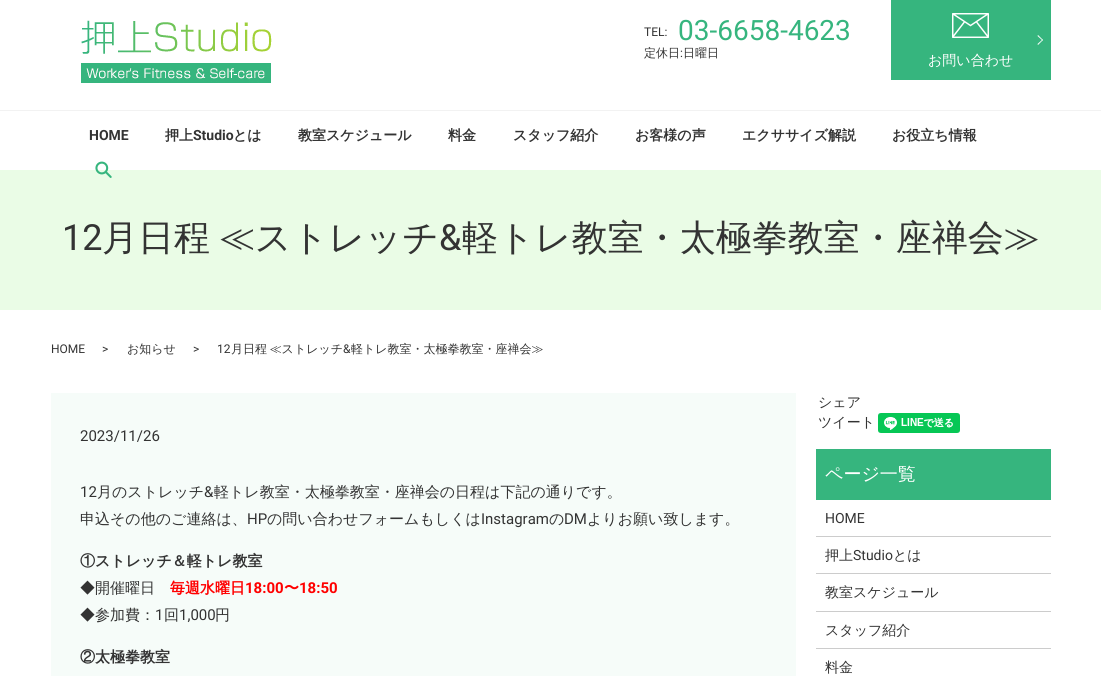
import math
import cairo

surface = cairo.ImageSurface(cairo.Format.RGB24, 1101, 676)
ctx = cairo.Context(surface)
options = cairo.FontOptions()
options.set_hint_metrics(cairo.HintMetrics.OFF)
options.set_hint_style(cairo.HintStyle.NONE)
ctx.set_font_options(options)
ctx.set_miter_limit(4)


def ink(r, g, b):
    ctx.set_source_rgb(r / 255, g / 255, b / 255)


def write(x, y, s, family, size, color, bold=False, italic=False):
    ctx.select_font_face(family, cairo.FontSlant.ITALIC if italic else cairo.FontSlant.NORMAL, cairo.FontWeight.BOLD if bold else cairo.FontWeight.NORMAL)
    ctx.set_font_size(size)
    ink(*color)
    ctx.move_to(x, y)
    ctx.show_text(s)


def write_spaced(x, y, s, letter, word):
    ctx.move_to(x, y)
    for ch in s:
        ctx.show_text(ch)
        ctx.rel_move_to(letter + word * (ch == ' '), 0)


def block(x, y, w, h, *color):
    ink(*color)
    ctx.rectangle(x, y, w, h)
    ctx.fill()


def paste(path, x, y, w, h):
    ctx.save()
    ctx.set_source_surface(cairo.ImageSurface.create_from_png(path), x, y)
    ctx.rectangle(x, y, w, h)
    ctx.fill()
    ctx.restore()


s1 = dict(family="Roboto", size=12, color=(51, 51, 51))
s2 = dict(family="Roboto", size=28, color=(54, 181, 126))
s3 = dict(family="WenQuanYi Zen Hei Medium", size=12, color=(51, 51, 51))
s4 = dict(family="WenQuanYi Zen Hei Medium", size=14, color=(255, 255, 255))
s5 = dict(family="Roboto", size=14, color=(51, 51, 51), bold=True)
s6 = dict(family="WenQuanYi Zen Hei", size=14, color=(51, 51, 51), bold=True)
s7 = dict(family="Roboto", size=36, color=(51, 51, 51))
s8 = dict(family="WenQuanYi Zen Hei Medium", size=36, color=(51, 51, 51))
s9 = dict(family="Roboto", size=15, color=(51, 51, 51))
s10 = dict(family="WenQuanYi Zen Hei Medium", size=15, color=(51, 51, 51))
s11 = dict(family="WenQuanYi Zen Hei", size=15, color=(51, 51, 51), bold=True)
s12 = dict(family="WenQuanYi Zen Hei", size=15, color=(255, 0, 0), bold=True)
s13 = dict(family="Roboto", size=15, color=(255, 0, 0), bold=True)
s14 = dict(family="WenQuanYi Zen Hei Medium", size=14, color=(51, 51, 51))
s15 = dict(family="WenQuanYi Zen Hei Medium", size=18, color=(255, 255, 255))
s16 = dict(family="Roboto", size=14, color=(51, 51, 51))

ink(255, 255, 255)
ctx.paint()
paste("pic1.png", 81, 20, 191, 63)
write(644, 36, "TEL:", **s1)
write(678, 40, "03-6658-4623", **s2)
write(644, 57, "定休日", **s3)
write(680, 57, ":", **s1)
write(683, 57, "日曜日", **s3)
block(891, 0, 160, 80, 54, 181, 126)
paste("pic2.png", 952, 13, 37, 25)
ink(255, 255, 255)
ctx.new_path()
ctx.move_to(1038, 35)
ctx.line_to(1043, 40)
ctx.line_to(1042.5, 40.5)
ctx.line_to(1037.5, 36)
ctx.close_path()
ctx.fill()
ctx.new_path()
ctx.move_to(1042.5, 39.5)
ctx.line_to(1043, 40)
ctx.line_to(1038, 45)
ctx.line_to(1037.5, 44)
ctx.close_path()
ctx.fill()
write(928, 65, "お問い合わせ", **s4)
block(0, 110, 1101, 1, 242, 242, 242)
write(89, 140, "HOME", **s5)
write(165, 140, "押上", **s6)
write(193, 140, "Studio", **s5)
write(233, 140, "とは", **s6)
write(298, 140, "教室スケジュール", **s6)
write(448, 140, "料金", **s6)
write(513, 140, "スタッフ紹介", **s6)
write(635, 140, "お客様の声", **s6)
write(742, 140, "エクササイズ解説", **s6)
write(892, 140, "お役立ち情報", **s6)
block(0, 170, 1101, 140, 234, 252, 230)
paste("pic3.png", 95, 161, 17, 17)
write(62, 250, "12", **s7)
ctx.select_font_face("WenQuanYi Zen Hei Medium")
write_spaced(102, 250, "月日程 ≪ストレッチ", 0, -2)
write(439, 250, "&", **s7)
write(462, 250, "軽トレ教室・太極拳教室・座禅会≫", **s8)
write(51, 353, "HOME", **s1)
write(102, 353, ">", **s1)
write(127, 353, "お知らせ", **s3)
write(193, 353, ">", **s1)
write(217, 353, "12", **s1)
ctx.select_font_face("WenQuanYi Zen Hei Medium")
write_spaced(231, 353, "月日程 ≪ストレッチ", 0, -1)
write(343, 353, "&", **s1)
write(351, 353, "軽トレ教室・太極拳教室・座禅会≫", **s3)
block(51, 393, 745, 283, 246, 252, 249)
write(80, 441, "2023/11/26", **s9)
write(80, 497, "12", **s9)
write(97, 497, "月のストレッチ", **s10)
write(204, 497, "&", **s9)
write(214, 497, "軽トレ教室・太極拳教室・座禅会の日程は下記の通りです。", **s10)
write(80, 524, "申込その他のご連絡は、", **s10)
write(247, 524, "HP", **s9)
write(267, 524, "の問い合わせフォームもしくは", **s10)
write(481, 524, "Instagram", **s9)
write(549, 524, "の", **s10)
write(564, 524, "DM", **s9)
write(587, 524, "よりお願い致します。", **s10)
write(80, 566, "①ストレッチ＆軽トレ教室", **s11)
write(80, 593, "◆開催曜日", **s10)
write(170, 593, "毎週水曜日", **s12)
write(245, 593, "18:00", **s13)
write(284, 593, "〜", **s12)
write(299, 593, "18:50", **s13)
write(80, 620, "◆参加費：", **s10)
write(155, 620, "1", **s9)
write(164, 620, "回", **s10)
write(179, 620, "1,000", **s9)
write(215, 620, "円", **s10)
write(80, 662, "②太極拳教室", **s11)
write(818, 407, "シェア", **s14)
write(818, 427, "ツイート", **s14)
paste("pic4.png", 878, 413, 82, 20)
block(816, 449, 235, 51, 54, 181, 126)
write(825, 480, "ページ一覧", **s15)
block(816, 536, 235, 1, 204, 204, 204)
write(825, 523, "HOME", **s16)
block(816, 573, 235, 1, 204, 204, 204)
write(825, 560, "押上", **s14)
write(853, 560, "Studio", **s16)
write(893, 560, "とは", **s14)
block(816, 611, 235, 1, 204, 204, 204)
write(825, 597, "教室スケジュール", **s14)
block(816, 648, 235, 1, 204, 204, 204)
write(825, 635, "スタッフ紹介", **s14)
write(825, 672, "料金", **s14)
surface.write_to_png("screenshot.png")
